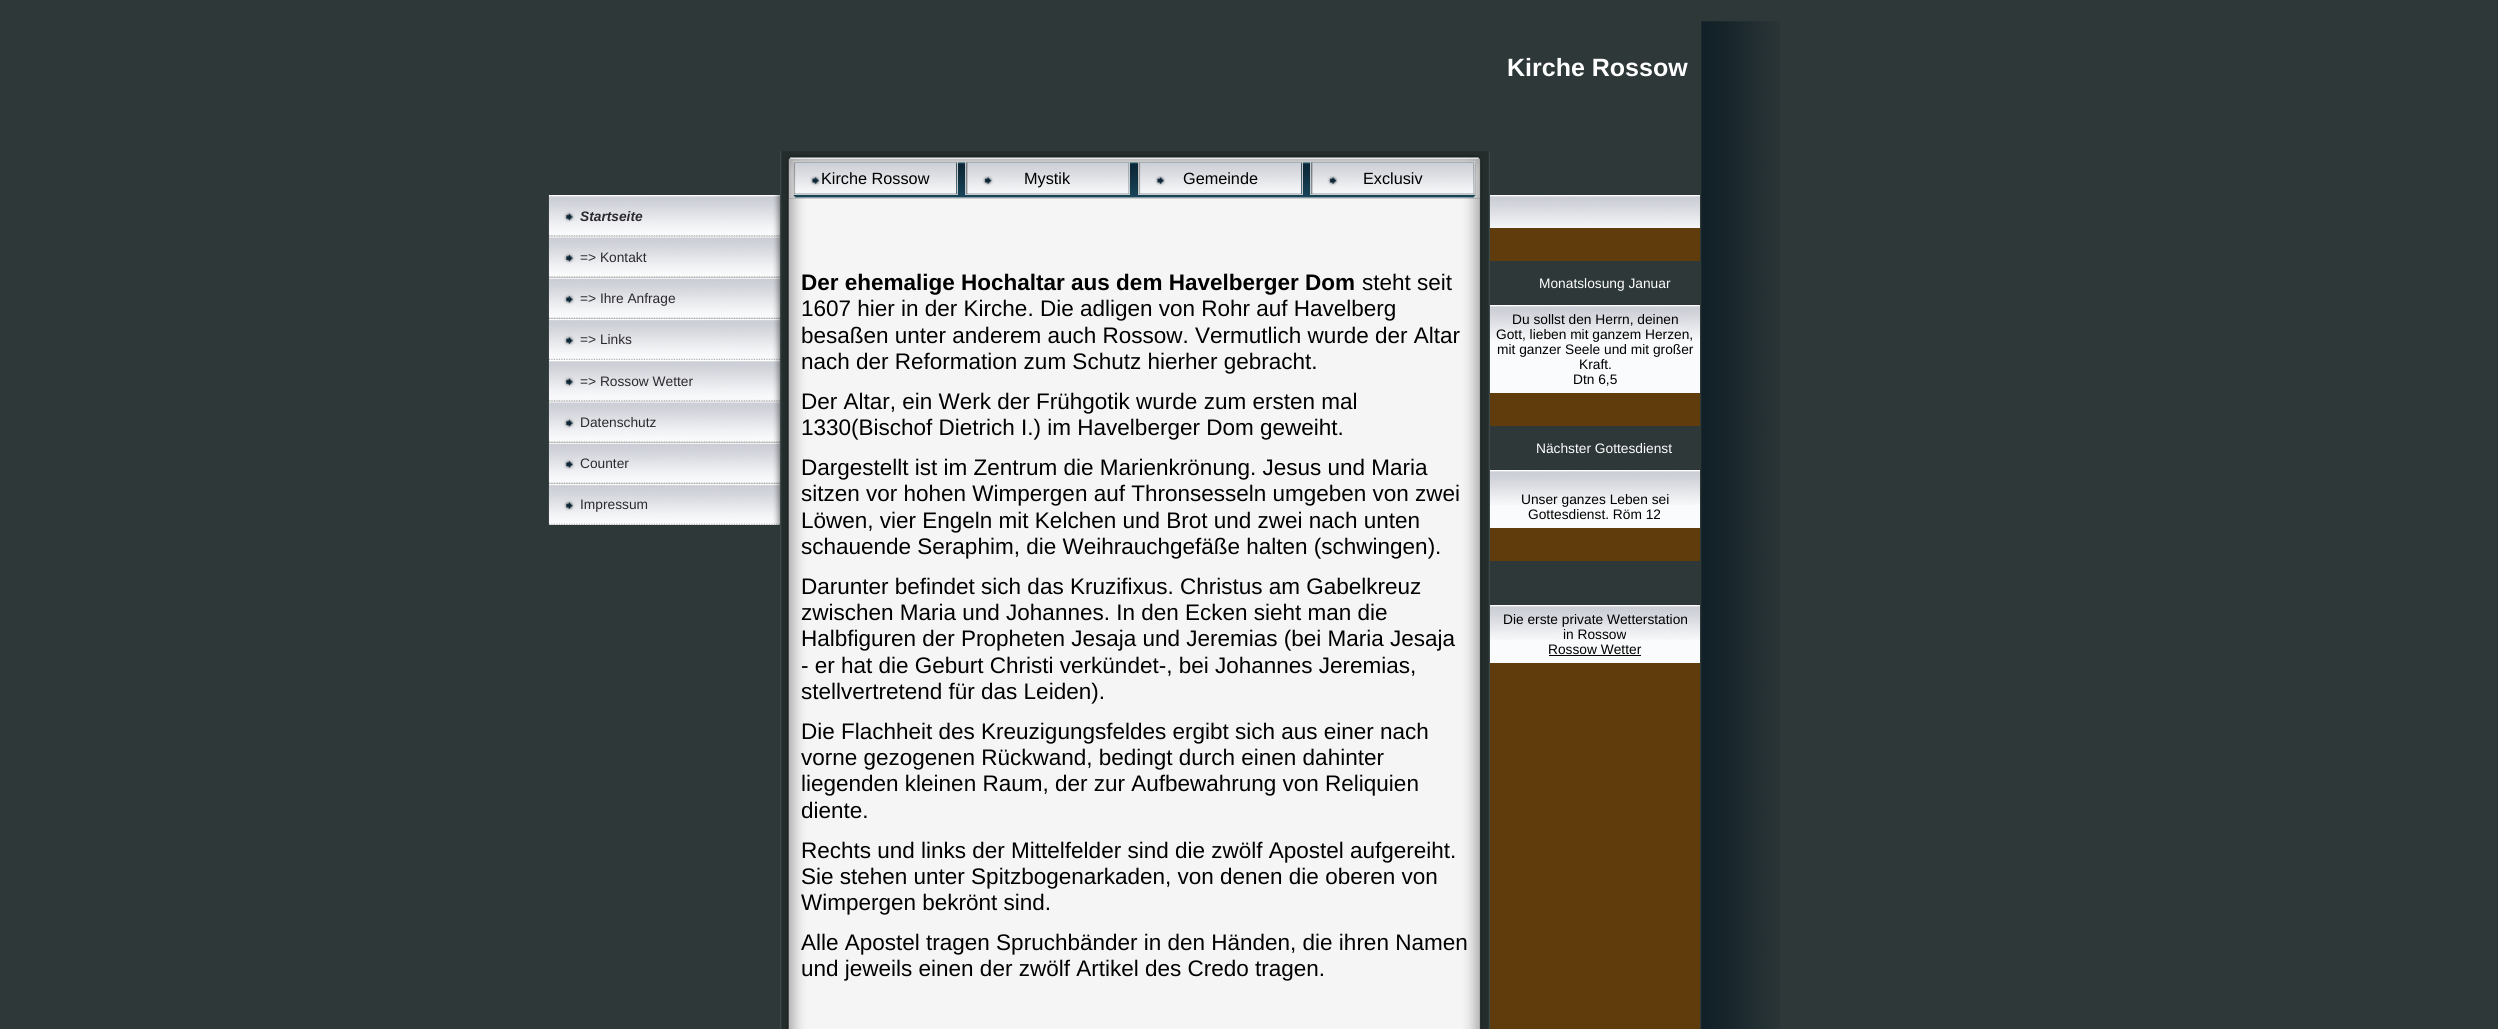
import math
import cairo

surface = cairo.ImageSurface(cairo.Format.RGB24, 2498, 1029)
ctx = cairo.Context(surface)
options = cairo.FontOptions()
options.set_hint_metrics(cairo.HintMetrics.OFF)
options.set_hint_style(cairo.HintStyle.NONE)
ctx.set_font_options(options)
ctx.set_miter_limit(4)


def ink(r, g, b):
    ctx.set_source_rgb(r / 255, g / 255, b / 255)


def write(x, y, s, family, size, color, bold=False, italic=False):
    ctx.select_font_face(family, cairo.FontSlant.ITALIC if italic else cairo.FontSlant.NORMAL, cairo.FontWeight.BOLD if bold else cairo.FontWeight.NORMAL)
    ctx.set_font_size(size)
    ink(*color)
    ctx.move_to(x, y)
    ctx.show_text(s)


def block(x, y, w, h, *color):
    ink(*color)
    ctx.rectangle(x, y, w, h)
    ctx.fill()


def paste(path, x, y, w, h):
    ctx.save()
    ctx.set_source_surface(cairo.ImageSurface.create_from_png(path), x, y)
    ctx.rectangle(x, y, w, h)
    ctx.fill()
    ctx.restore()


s1 = dict(family="Liberation Sans", size=25, color=(255, 255, 255), bold=True)
s2 = dict(family="Liberation Sans", size=13.75, color=(44, 42, 46), bold=True, italic=True)
s3 = dict(family="Liberation Sans", size=13.75, color=(44, 42, 46))
s4 = dict(family="Liberation Sans", size=22.5, color=(0, 0, 0), bold=True)
s5 = dict(family="Liberation Sans", size=22.5, color=(0, 0, 0))
s6 = dict(family="Liberation Sans", size=13.75, color=(255, 255, 255))
s7 = dict(family="Liberation Sans", size=13.75, color=(0, 0, 0))
s8 = dict(family="Liberation Sans", size=16.25, color=(0, 0, 0))

ink(46, 56, 57)
ctx.paint()
write(1507, 76, "Kirche Rossow", **s1)
paste("pic1.png", 548, 195, 232, 42)
write(580, 221, "Startseite", **s2)
paste("pic2.png", 548, 236, 232, 42)
write(580, 262, "=> Kontakt", **s3)
paste("pic3.png", 548, 277, 232, 42)
write(580, 303, "=> Ihre Anfrage", **s3)
paste("pic4.png", 548, 318, 232, 42)
write(580, 344, "=> Links", **s3)
paste("pic1.png", 548, 360, 232, 42)
write(580, 386, "=> Rossow Wetter", **s3)
paste("pic2.png", 548, 401, 232, 42)
write(580, 427, "Datenschutz", **s3)
paste("pic5.png", 548, 442, 232, 42)
write(580, 468, "Counter", **s3)
paste("pic4.png", 548, 483, 232, 42)
write(580, 509, "Impressum", **s3)
paste("pic6.png", 780, 151, 710, 48)
paste("pic7.png", 780, 198, 710, 831)
write(801, 290, "Der ehemalige Hochaltar aus dem Havelberger Dom", **s4)
write(1362, 290, "steht seit", **s5)
write(801, 316, "1607 hier in der Kirche. Die adligen von Rohr auf Havelberg", **s5)
write(801, 343, "besaßen unter anderem auch Rossow. Vermutlich wurde der Altar", **s5)
write(801, 369, "nach der Reformation zum Schutz hierher gebracht.", **s5)
write(801, 409, "Der Altar, ein Werk der Frühgotik wurde zum ersten mal", **s5)
write(801, 435, "1330(Bischof Dietrich I.) im Havelberger Dom geweiht.", **s5)
write(801, 475, "Dargestellt ist im Zentrum die Marienkrönung. Jesus und Maria", **s5)
write(801, 501, "sitzen vor hohen Wimpergen auf Thronsesseln umgeben von zwei", **s5)
write(801, 528, "Löwen, vier Engeln mit Kelchen und Brot und zwei nach unten", **s5)
write(801, 554, "schauende Seraphim, die Weihrauchgefäße halten (schwingen).", **s5)
write(801, 594, "Darunter befindet sich das Kruzifixus. Christus am Gabelkreuz", **s5)
write(801, 620, "zwischen Maria und Johannes. In den Ecken sieht man die", **s5)
write(801, 646, "Halbfiguren der Propheten Jesaja und Jeremias (bei Maria Jesaja", **s5)
write(801, 673, "- er hat die Geburt Christi verkündet-, bei Johannes Jeremias,", **s5)
write(801, 699, "stellvertretend für das Leiden).", **s5)
write(801, 739, "Die Flachheit des Kreuzigungsfeldes ergibt sich aus einer nach", **s5)
write(801, 765, "vorne gezogenen Rückwand, bedingt durch einen dahinter", **s5)
write(801, 791, "liegenden kleinen Raum, der zur Aufbewahrung von Reliquien", **s5)
write(801, 818, "diente.", **s5)
write(801, 858, "Rechts und links der Mittelfelder sind die zwölf Apostel aufgereiht.", **s5)
write(801, 884, "Sie stehen unter Spitzbogenarkaden, von denen die oberen von", **s5)
write(801, 910, "Wimpergen bekrönt sind.", **s5)
write(801, 950, "Alle Apostel tragen Spruchbänder in den Händen, die ihren Namen", **s5)
write(801, 976, "und jeweils einen der zwölf Artikel des Credo tragen.", **s5)
block(1490, 228, 210, 801, 96, 60, 12)
block(1490, 227, 210, 1, 250, 251, 252)
paste("pic8.png", 1490, 195, 210, 33)
block(1490, 261, 210, 44, 46, 56, 57)
write(1539, 288, "Monatslosung Januar", **s6)
block(1490, 340, 210, 53, 250, 251, 252)
paste("pic9.png", 1490, 305, 210, 35)
write(1512, 324, "Du sollst den Herrn, deinen", **s7)
write(1496, 339, "Gott, lieben mit ganzem Herzen,", **s7)
write(1497, 354, "mit ganzer Seele und mit großer", **s7)
write(1579, 369, "Kraft.", **s7)
write(1573, 384, "Dtn 6,5", **s7)
block(1490, 426, 210, 44, 46, 56, 57)
write(1536, 453, "Nächster Gottesdienst", **s6)
block(1490, 505, 210, 23, 250, 251, 252)
paste("pic9.png", 1490, 470, 210, 35)
write(1521, 504, "Unser ganzes Leben sei", **s7)
write(1528, 519, "Gottesdienst. Röm 12", **s7)
block(1490, 561, 210, 44, 46, 56, 57)
block(1490, 640, 210, 23, 250, 251, 252)
paste("pic9.png", 1490, 605, 210, 35)
write(1503, 624, "Die erste private Wetterstation", **s7)
write(1563, 639, "in Rossow", **s7)
write(1548, 654, "Rossow Wetter", **s7)
block(1549, 655, 92, 1, 0, 0, 0)
paste("pic10.png", 1701, 21, 79, 1008)
ctx.rectangle(793.5, 161.5, 164, 33)
ink(201, 201, 201)
ctx.set_line_width(1)
ctx.stroke()
paste("pic11.png", 793, 162, 164, 32)
write(821, 184, "Kirche Rossow", **s8)
ctx.rectangle(965.5, 161.5, 164, 33)
ink(201, 201, 201)
ctx.stroke()
paste("pic12.png", 966, 162, 163, 32)
write(1024, 184, "Mystik", **s8)
ctx.rectangle(1138.5, 161.5, 164, 33)
ink(201, 201, 201)
ctx.stroke()
paste("pic13.png", 1138, 162, 164, 32)
write(1183, 184, "Gemeinde", **s8)
ctx.rectangle(1310.5, 161.5, 164, 33)
ink(201, 201, 201)
ctx.stroke()
paste("pic14.png", 1311, 162, 163, 32)
write(1363, 184, "Exclusiv", **s8)
surface.write_to_png("screenshot.png")
